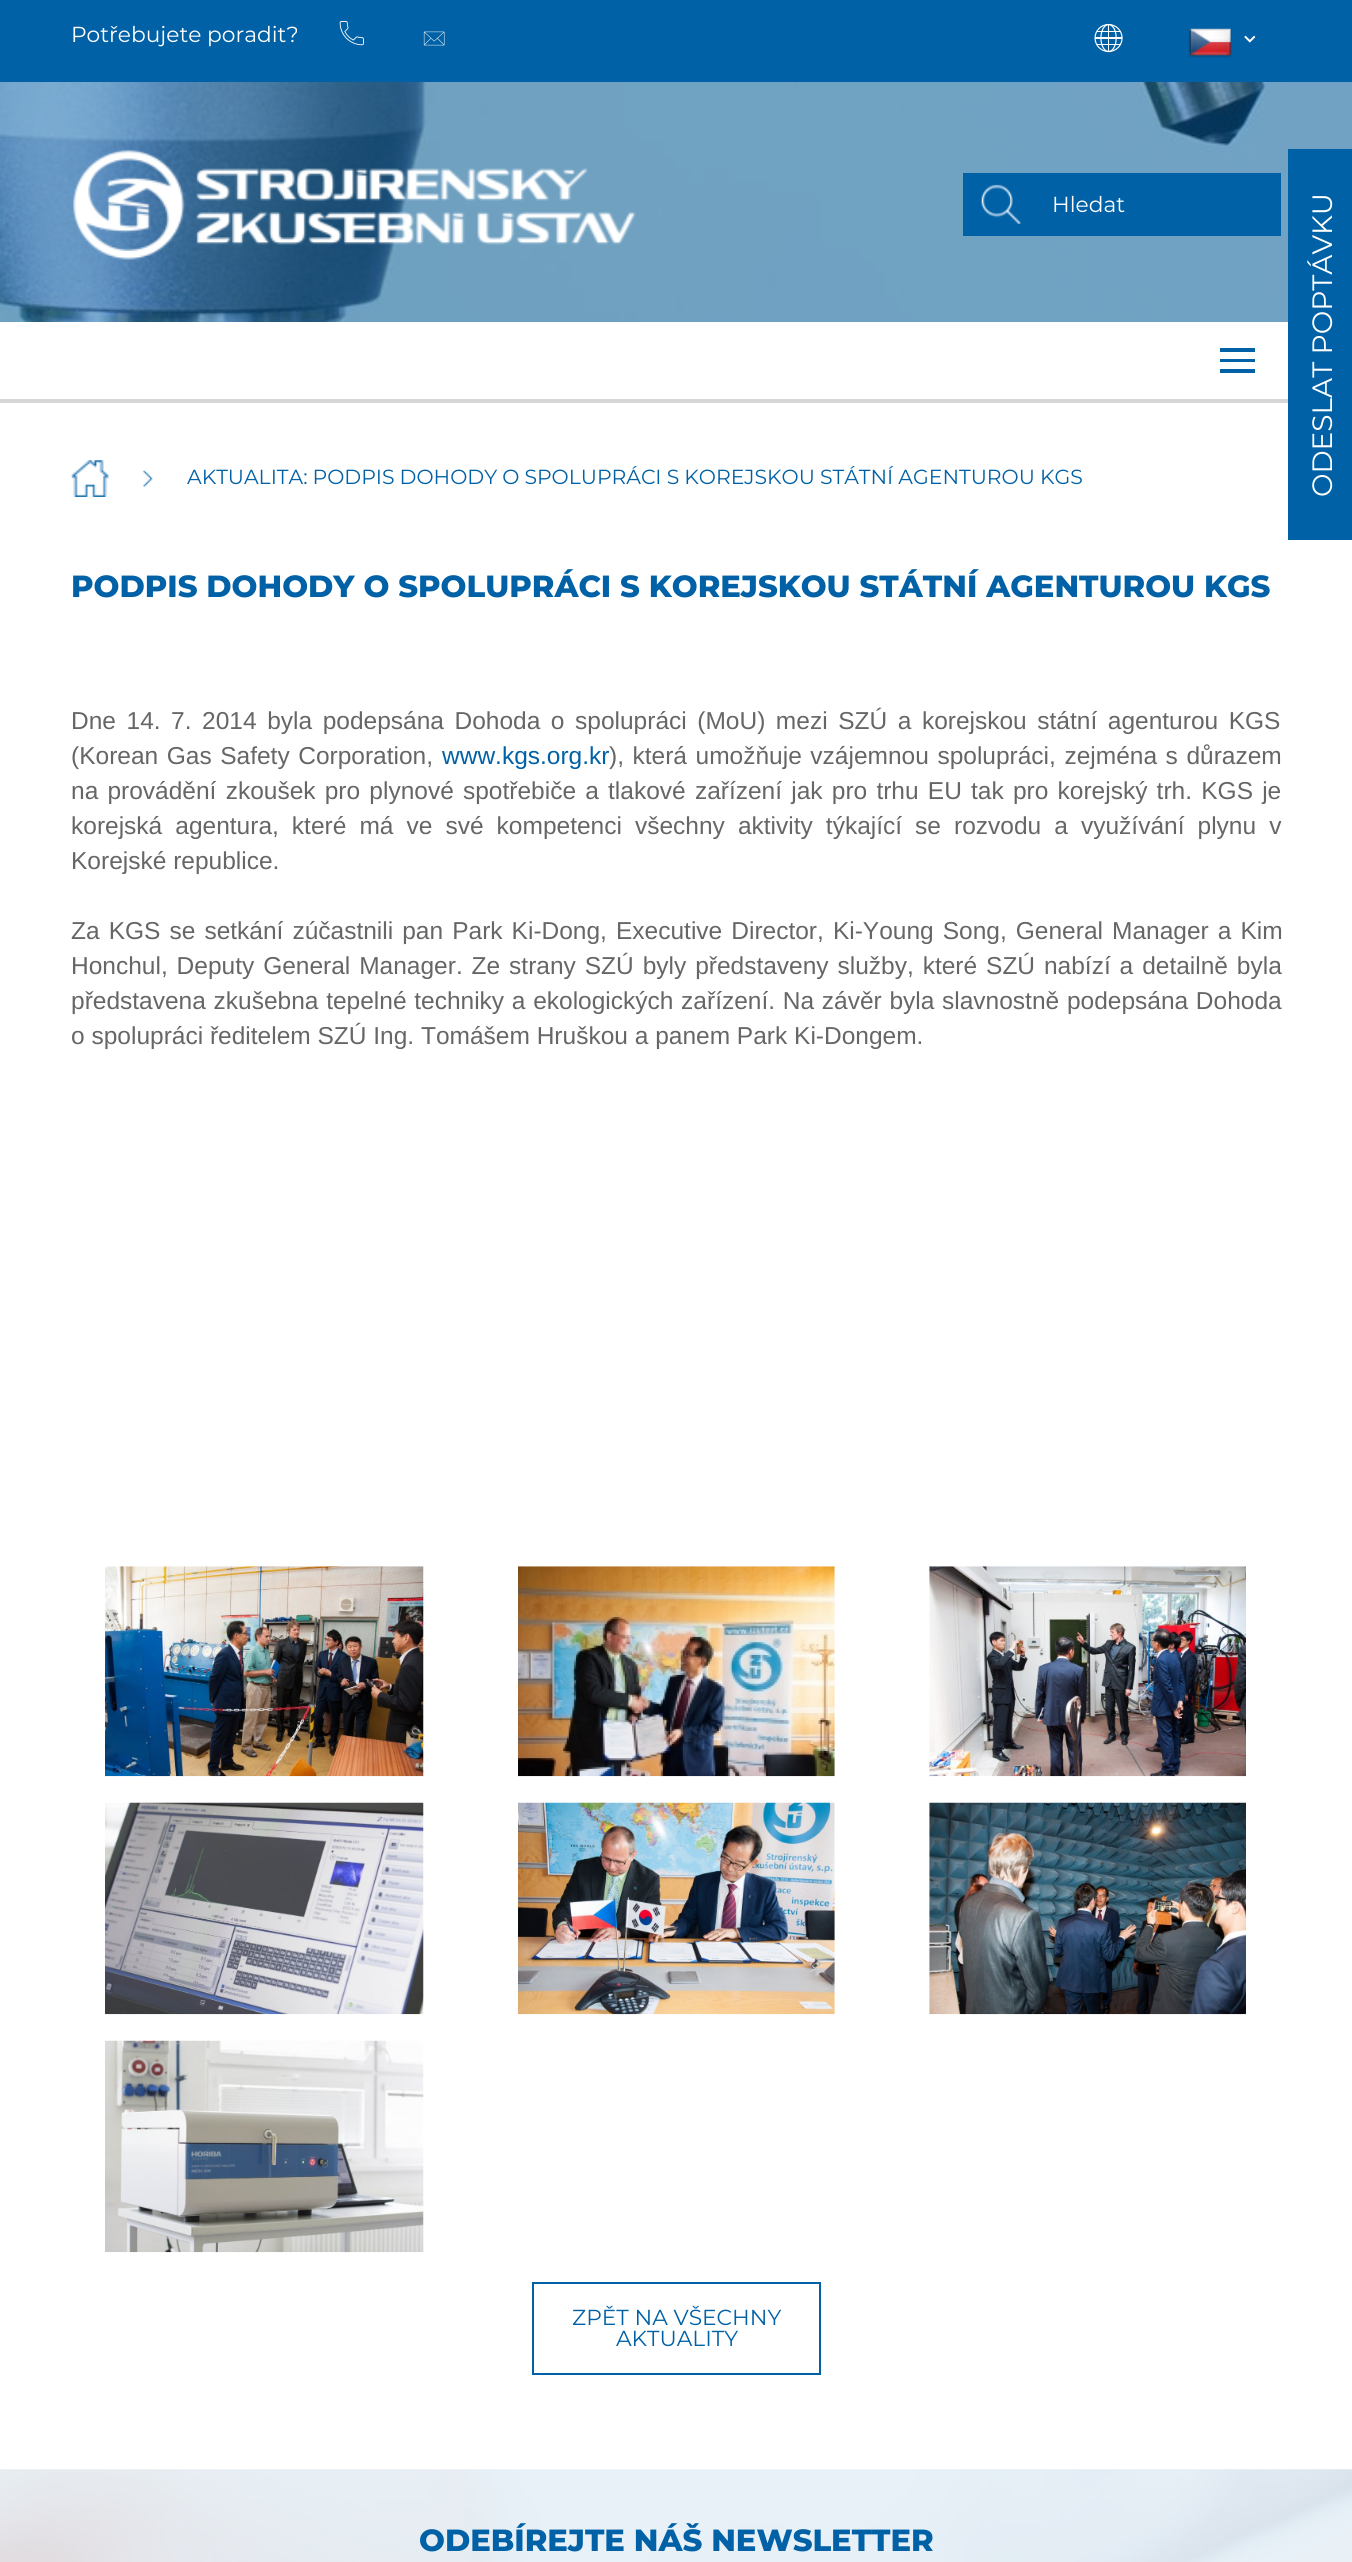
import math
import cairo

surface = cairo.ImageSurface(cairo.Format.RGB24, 1352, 2562)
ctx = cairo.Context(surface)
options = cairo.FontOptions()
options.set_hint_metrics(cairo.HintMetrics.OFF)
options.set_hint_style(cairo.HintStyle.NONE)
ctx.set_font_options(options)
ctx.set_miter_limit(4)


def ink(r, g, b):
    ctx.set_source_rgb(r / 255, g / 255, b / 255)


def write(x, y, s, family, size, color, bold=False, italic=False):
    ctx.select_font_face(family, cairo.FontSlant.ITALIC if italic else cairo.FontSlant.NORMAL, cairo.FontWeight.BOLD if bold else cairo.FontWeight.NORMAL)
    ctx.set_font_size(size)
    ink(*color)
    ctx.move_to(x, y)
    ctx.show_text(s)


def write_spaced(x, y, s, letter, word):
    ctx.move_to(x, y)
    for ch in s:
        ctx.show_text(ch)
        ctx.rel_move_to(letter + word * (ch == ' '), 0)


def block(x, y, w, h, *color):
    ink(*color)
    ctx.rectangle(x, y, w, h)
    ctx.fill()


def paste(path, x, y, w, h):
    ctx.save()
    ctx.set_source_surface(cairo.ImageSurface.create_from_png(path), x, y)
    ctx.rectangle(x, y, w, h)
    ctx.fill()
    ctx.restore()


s1 = dict(family="Montserrat", size=21.75, color=(255, 255, 255))
s2 = dict(family="Montserrat", size=28, color=(255, 255, 255))
s3 = dict(family="Montserrat ExtraBold", size=30.6, color=(0, 97, 166))
s4 = dict(family="Liberation Sans", size=24.5, color=(0, 97, 166))
s5 = dict(family="Liberation Sans", size=24.5, color=(102, 102, 102))
s6 = dict(family="Montserrat", size=21.75, color=(0, 97, 166))

ink(255, 255, 255)
ctx.paint()
block(0, 0, 1352, 82, 0, 97, 166)
write(71, 42, "Potřebujete poradit?", **s1)
paste("pic1.png", 339, 21, 25, 25)
paste("pic2.png", 423, 31, 22, 15)
paste("pic3.png", 1094, 23, 29, 30)
paste("pic4.png", 1188, 28, 44, 30)
paste("pic5.png", 1244, 35, 12, 8)
paste("pic6.png", 0, 82, 1352, 240)
paste("pic7.png", 73, 150, 563, 111)
block(963, 173, 318, 63, 0, 97, 166)
paste("pic8.png", 981, 184, 40, 40)
write(1052, 212, "Hledat", **s1)
block(0, 399, 1288, 4, 214, 214, 214)
block(1220, 359, 35, 3, 0, 97, 166)
block(1220, 348, 35, 4, 0, 97, 166)
block(1220, 369, 35, 4, 0, 97, 166)
paste("pic9.png", 71, 460, 38, 37)
paste("pic10.png", 143, 470, 10, 17)
ctx.set_font_size(20.4)
write_spaced(187, 484, "AKTUALITA: PODPIS DOHODY O SPOLUPRÁCI S KOREJSKOU STÁTNÍ AGENTUROU KGS", 0, -0.25)
block(1288, 149, 64, 391, 0, 97, 166)
ctx.save()
ctx.translate(1332, 497)
ctx.rotate(-90 * math.pi / 180)
write(0, 0, "ODESLAT POPTÁVKU", **s2)
ctx.restore()
write(71, 597, "PODPIS DOHODY O SPOLUPRÁCI S KOREJSKOU STÁTNÍ AGENTUROU KGS", **s3)
ctx.select_font_face("Liberation Sans")
ctx.set_font_size(24.5)
ink(102, 102, 102)
write_spaced(71, 729, "Dne 14. 7. 2014 byla podepsána Dohoda o spolupráci (MoU) mezi SZÚ a korejskou státní agenturou KGS", 0, 3.75)
write_spaced(71, 764, "(Korean Gas Safety Corporation,", 0, 1.75)
write(442, 764, "www.kgs.org.kr", **s4)
ink(102, 102, 102)
write_spaced(609, 764, "), která umožňuje vzájemnou spolupráci, zejména s důrazem", 0, 1.75)
write_spaced(71, 799, "na provádění zkoušek pro plynové spotřebiče a tlakové zařízení jak pro trhu EU tak pro korejský trh. KGS je", 0, 2.4)
write_spaced(71, 834, "korejská agentura, které má ve své kompetenci všechny aktivity týkající se rozvodu a využívání plynu v", 0, 6.25)
write(71, 869, "Korejské republice.", **s5)
write_spaced(71, 939, "Za KGS se setkání zúčastnili pan Park Ki-Dong, Executive Director, Ki-Young Song, General Manager a Kim", 0, 2.25)
write_spaced(71, 974, "Honchul, Deputy General Manager. Ze strany SZÚ byly představeny služby, které SZÚ nabízí a detailně byla", 0, 2.1)
write_spaced(71, 1009, "představena zkušebna tepelné techniky a ekologických zařízení. Na závěr byla slavnostně podepsána Dohoda", 0, 0.9)
write(71, 1044, "o spolupráci ředitelem SZÚ Ing. Tomášem Hruškou a panem Park Ki-Dongem.", **s5)
paste("pic11.png", 105, 1566, 319, 211)
paste("pic12.png", 518, 1566, 317, 211)
paste("pic13.png", 929, 1566, 317, 211)
paste("pic14.png", 105, 1802, 319, 213)
paste("pic15.png", 518, 1802, 317, 213)
paste("pic16.png", 929, 1802, 317, 213)
paste("pic17.png", 105, 2040, 319, 213)
ctx.rectangle(533, 2283, 287, 91)
ink(0, 97, 166)
ctx.stroke()
write(572, 2325, "ZPĚT NA VŠECHNY", **s6)
write(616, 2346, "AKTUALITY", **s6)
paste("pic18.png", 0, 2469, 1352, 93)
write(419, 2551, "ODEBÍREJTE NÁŠ NEWSLETTER", **s3)
surface.write_to_png("screenshot.png")
